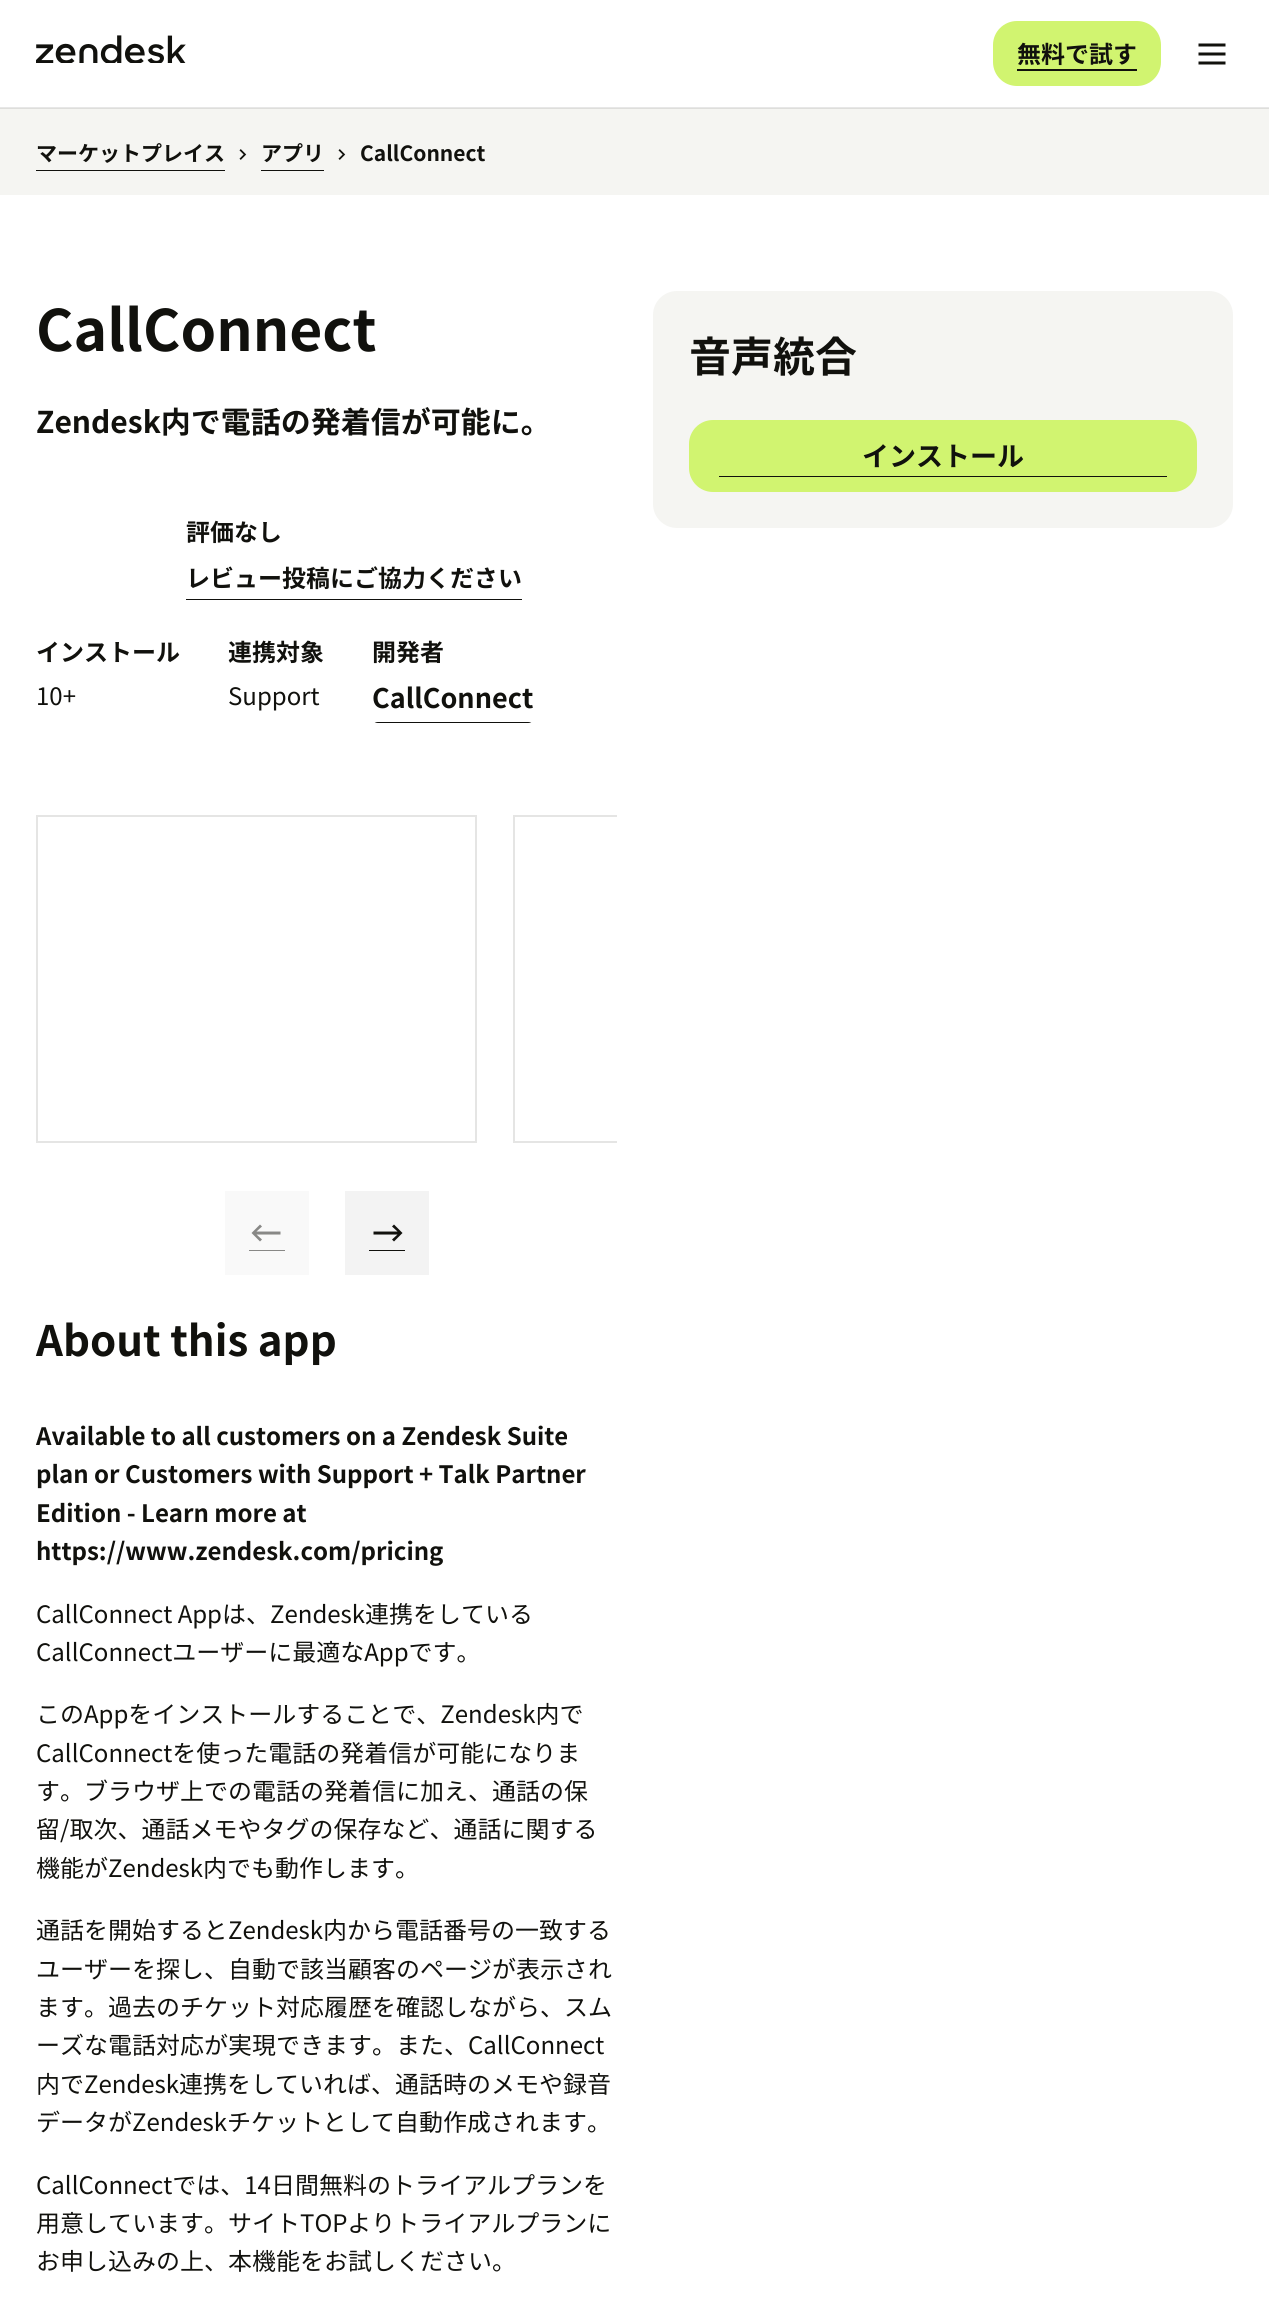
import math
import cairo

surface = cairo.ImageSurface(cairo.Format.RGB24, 1269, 2316)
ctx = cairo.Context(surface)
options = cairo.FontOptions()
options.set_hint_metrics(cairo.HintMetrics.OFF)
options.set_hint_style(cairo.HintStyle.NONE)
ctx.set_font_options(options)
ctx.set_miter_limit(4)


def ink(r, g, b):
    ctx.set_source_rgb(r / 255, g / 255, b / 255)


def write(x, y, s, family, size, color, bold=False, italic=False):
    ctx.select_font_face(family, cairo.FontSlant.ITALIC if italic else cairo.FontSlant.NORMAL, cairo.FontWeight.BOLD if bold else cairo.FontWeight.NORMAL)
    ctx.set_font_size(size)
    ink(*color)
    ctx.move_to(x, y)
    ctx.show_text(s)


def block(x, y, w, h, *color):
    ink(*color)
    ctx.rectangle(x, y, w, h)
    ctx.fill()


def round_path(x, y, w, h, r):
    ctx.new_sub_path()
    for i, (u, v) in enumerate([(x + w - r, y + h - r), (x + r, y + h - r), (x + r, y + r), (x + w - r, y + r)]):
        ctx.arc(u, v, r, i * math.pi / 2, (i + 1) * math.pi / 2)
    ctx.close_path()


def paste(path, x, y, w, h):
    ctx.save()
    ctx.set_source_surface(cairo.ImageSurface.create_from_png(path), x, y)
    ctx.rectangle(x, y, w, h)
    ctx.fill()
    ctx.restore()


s1 = dict(family="Noto Sans JP", size=24, color=(17, 17, 13), bold=True)
s2 = dict(family="Noto Sans JP", size=21, color=(17, 17, 13), bold=True)
s3 = dict(family="Noto Sans JP", size=57, color=(17, 17, 13), bold=True)
s4 = dict(family="Noto Sans JP", size=30, color=(17, 17, 13), bold=True)
s5 = dict(family="Noto Sans JP", size=24, color=(17, 17, 13))
s6 = dict(family="Noto Sans JP", size=27, color=(17, 17, 13), bold=True)
s7 = dict(family="Noto Sans JP", size=42, color=(17, 17, 13), bold=True)

ink(255, 255, 255)
ctx.paint()
block(0, 107, 1269, 1, 231, 231, 231)
paste("pic1.png", 36, 35, 150, 28)
ink(209, 244, 112)
round_path(993, 21, 168, 65, 24)
ctx.fill()
block(1017, 69, 120, 2, 17, 17, 13)
write(1017, 63, "無料で試す", **s1)
paste("pic2.png", 1198, 43, 28, 22)
block(0, 109, 1269, 86, 245, 245, 242)
block(0, 108, 1269, 1, 222, 222, 219)
write(36, 161, "マーケットプレイス", **s2)
block(36, 170, 189, 1, 17, 17, 13)
paste("pic3.png", 239, 149, 8, 11)
write(261, 161, "アプリ", **s2)
block(261, 170, 63, 1, 17, 17, 13)
paste("pic3.png", 338, 149, 8, 11)
write(360, 161, "CallConnect", **s2)
write(36, 351, "CallConnect", **s3)
write(36, 433, "Zendesk内で電話の発着信が可能に。", **s4)
write(186, 541, "評価なし", **s1)
write(186, 587, "レビュー投稿にご協力ください", **s1)
block(186, 599, 336, 1, 17, 17, 13)
write(36, 661, "インストール", **s1)
write(36, 705, "10+", **s5)
write(228, 661, "連携対象", **s1)
write(228, 705, "Support", **s5)
write(372, 661, "開発者", **s1)
write(372, 708, "CallConnect", **s6)
ctx.save()
round_path(372, 677, 162, 46, 6)
ctx.clip()
block(372, 722, 162, 1, 17, 17, 13)
ctx.restore()
ctx.rectangle(37, 816, 439, 326)
ink(229, 229, 228)
ctx.stroke()
ctx.save()
ctx.rectangle(36, 815, 581, 328)
ctx.clip()
ctx.rectangle(514, 816, 439, 326)
ctx.stroke()
ctx.restore()
block(249, 1250, 36, 1, 136, 136, 134)
ctx.set_source_rgba(0.533, 0.533, 0.525, 0.05)
ctx.rectangle(225, 1191, 84, 84)
ctx.fill()
ink(136, 136, 134)
ctx.new_path()
ctx.move_to(256.5, 1234.5)
ctx.line_to(262, 1239.5)
ctx.line_to(260, 1241.5)
ctx.line_to(251.5, 1233)
ctx.line_to(260, 1224.5)
ctx.line_to(262, 1226.5)
ctx.line_to(256.5, 1231.5)
ctx.line_to(280.5, 1231.5)
ctx.line_to(280.5, 1234.5)
ctx.close_path()
ctx.fill()
block(369, 1250, 36, 1, 17, 17, 13)
ctx.set_source_rgba(0.067, 0.067, 0.051, 0.05)
ctx.rectangle(345, 1191, 84, 84)
ctx.fill()
ink(17, 17, 13)
ctx.new_path()
ctx.move_to(397.5, 1231.5)
ctx.line_to(392, 1226.5)
ctx.line_to(394, 1224.5)
ctx.line_to(402.5, 1233)
ctx.line_to(394, 1241.5)
ctx.line_to(392, 1239.5)
ctx.line_to(397.5, 1234.5)
ctx.line_to(373.5, 1234.5)
ctx.line_to(373.5, 1231.5)
ctx.close_path()
ctx.fill()
write(36, 1356, "About this app", **s7)
write(36, 1445, "Available to all customers on a Zendesk Suite", **s1)
write(36, 1483, "plan or Customers with Support + Talk Partner", **s1)
write(36, 1522, "Edition - Learn more at", **s1)
write(36, 1560, "https://www.zendesk.com/pricing", **s1)
write(36, 1623, "CallConnect Appは、Zendesk連携をしている", **s5)
write(36, 1661, "CallConnectユーザーに最適なAppです。", **s5)
write(36, 1723, "このAppをインストールすることで、Zendesk内で", **s5)
write(36, 1762, "CallConnectを使った電話の発着信が可能になりま", **s5)
write(36, 1800, "す。ブラウザ上での電話の発着信に加え、通話の保", **s5)
write(36, 1838, "留/取次、通話メモやタグの保存など、通話に関する", **s5)
write(36, 1877, "機能がZendesk内でも動作します。", **s5)
write(36, 1939, "通話を開始するとZendesk内から電話番号の一致する", **s5)
write(36, 1978, "ユーザーを探し、自動で該当顧客のページが表示され", **s5)
write(36, 2016, "ます。過去のチケット対応履歴を確認しながら、スム", **s5)
write(36, 2054, "ーズな電話対応が実現できます。また、CallConnect", **s5)
write(36, 2093, "内でZendesk連携をしていれば、通話時のメモや録音", **s5)
write(36, 2131, "データがZendeskチケットとして自動作成されます。", **s5)
write(36, 2194, "CallConnectでは、14日間無料のトライアルプランを", **s5)
write(36, 2232, "用意しています。サイトTOPよりトライアルプランに", **s5)
write(36, 2270, "お申し込みの上、本機能をお試しください。", **s5)
ink(245, 245, 242)
round_path(653, 291, 580, 237, 24)
ctx.fill()
write(689, 372, "音声統合", **s7)
ink(209, 244, 112)
round_path(689, 420, 508, 72, 24)
ctx.fill()
block(719, 476, 448, 1, 17, 17, 13)
write(862, 466, "インストール", **s6)
surface.write_to_png("screenshot.png")
